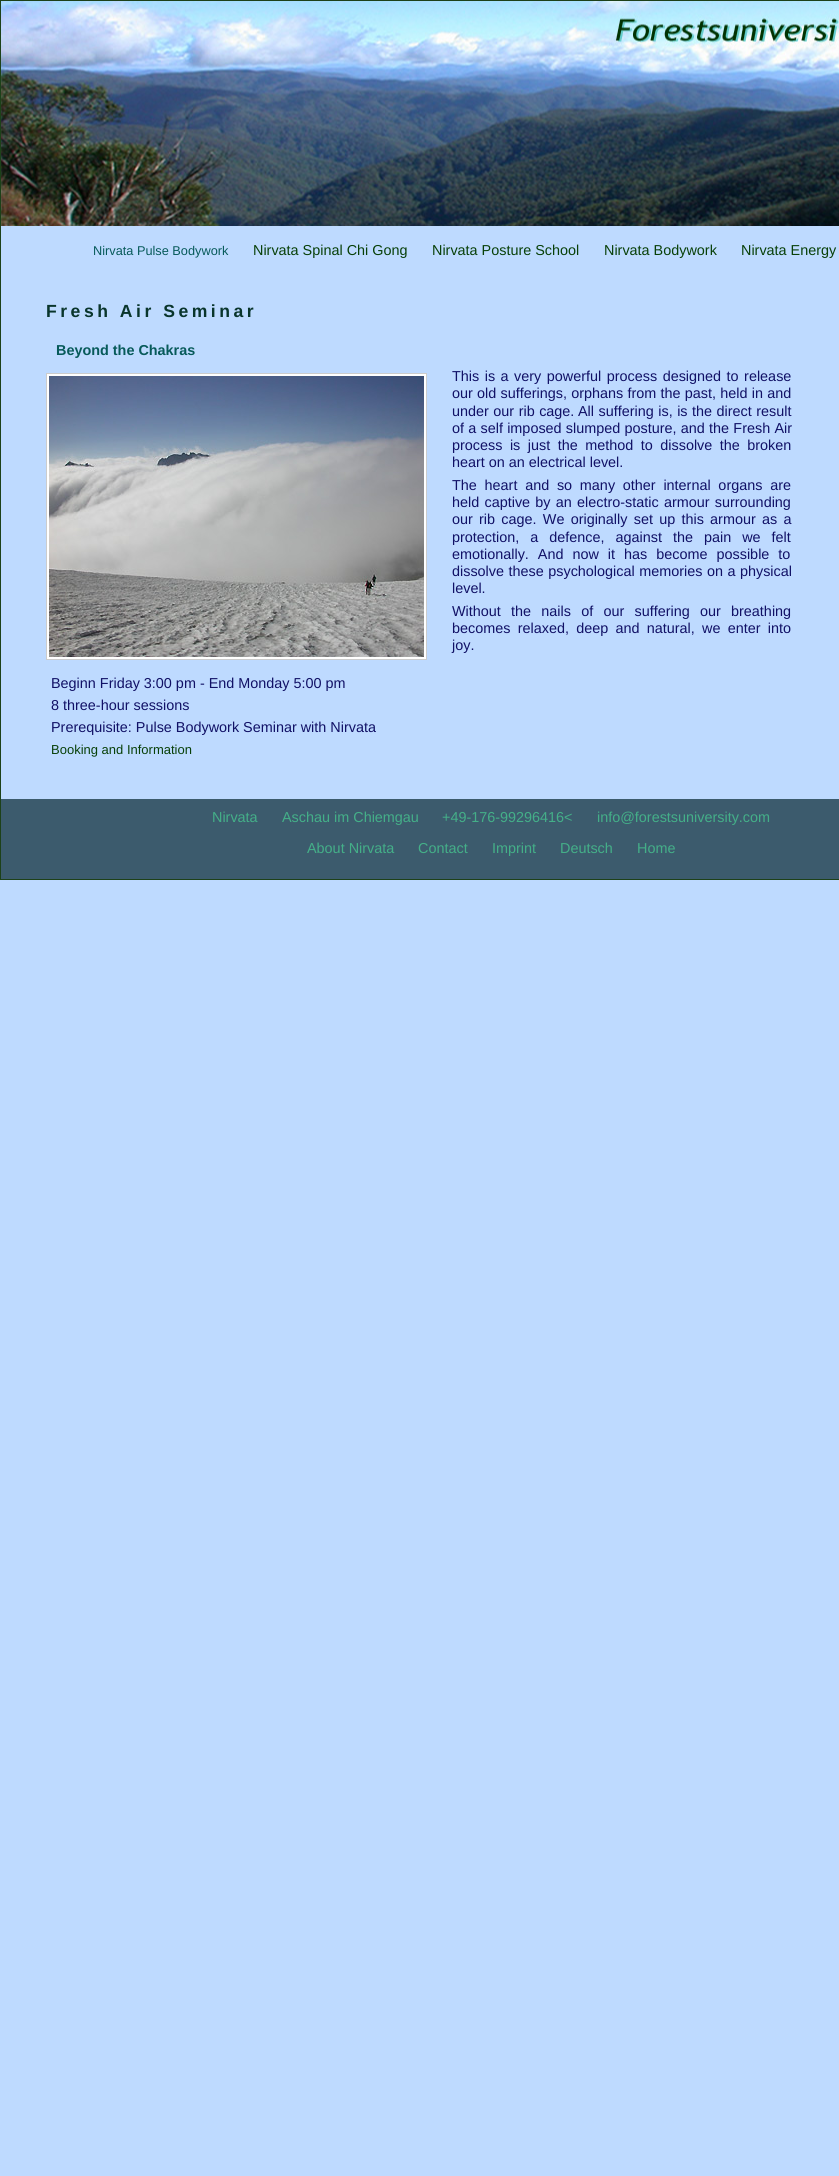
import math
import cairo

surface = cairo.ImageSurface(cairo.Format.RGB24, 839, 2176)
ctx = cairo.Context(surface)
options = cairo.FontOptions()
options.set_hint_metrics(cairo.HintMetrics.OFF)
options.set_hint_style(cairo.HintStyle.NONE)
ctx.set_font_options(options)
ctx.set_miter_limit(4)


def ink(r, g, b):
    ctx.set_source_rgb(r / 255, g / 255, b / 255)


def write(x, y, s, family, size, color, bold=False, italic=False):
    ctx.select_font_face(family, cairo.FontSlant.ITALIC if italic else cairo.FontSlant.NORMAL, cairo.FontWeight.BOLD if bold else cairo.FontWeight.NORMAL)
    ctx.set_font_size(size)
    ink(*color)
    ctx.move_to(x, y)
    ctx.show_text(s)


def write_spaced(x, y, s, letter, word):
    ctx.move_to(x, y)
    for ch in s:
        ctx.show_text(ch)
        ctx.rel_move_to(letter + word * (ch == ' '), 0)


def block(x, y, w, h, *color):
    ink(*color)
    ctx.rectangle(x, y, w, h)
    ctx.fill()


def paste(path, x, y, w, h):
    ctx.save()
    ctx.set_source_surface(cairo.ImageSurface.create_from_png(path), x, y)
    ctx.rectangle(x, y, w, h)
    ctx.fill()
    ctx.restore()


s1 = dict(family="Liberation Sans", size=12.75, color=(7, 90, 90))
s2 = dict(family="Liberation Sans", size=14.4, color=(8, 64, 8))
s3 = dict(family="Liberation Sans", size=14.4, color=(7, 90, 90), bold=True)
s4 = dict(family="Liberation Sans", size=14.4, color=(17, 17, 102))
s5 = dict(family="Liberation Sans", size=13, color=(8, 64, 8))
s6 = dict(family="Liberation Sans", size=14.4, color=(68, 175, 136))

ink(190, 218, 255)
ctx.paint()
ctx.rectangle(0.5, 0.5, 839, 879)
ink(29, 65, 25)
ctx.set_line_width(1)
ctx.stroke()
paste("pic1.png", 1, 1, 838, 225)
write(93, 255, "Nirvata Pulse Bodywork", **s1)
write(253, 255, "Nirvata Spinal Chi Gong", **s2)
write(432, 255, "Nirvata Posture School", **s2)
write(604, 255, "Nirvata Bodywork", **s2)
write(741, 255, "Nirvata Energy", **s2)
ctx.select_font_face("Liberation Sans", cairo.FontSlant.NORMAL, cairo.FontWeight.BOLD)
ctx.set_font_size(17.6)
ink(9, 53, 44)
write_spaced(46, 317, "Fresh Air Seminar", 3.5, 0)
write(56, 355, "Beyond the Chakras", **s3)
ink(255, 255, 255)
ctx.rectangle(46.5, 373.5, 380, 286)
ctx.fill_preserve()
ink(204, 204, 204)
ctx.stroke()
paste("pic2.png", 49, 376, 375, 281)
ctx.select_font_face("Liberation Sans")
ink(17, 17, 102)
write_spaced(452, 381, "This is a very powerful process designed to release", 0, 1.5)
write_spaced(452, 398, "our old sufferings, orphans from the past, held in and", 0, 0.25)
write_spaced(452, 416, "under our rib cage.", 0, 0.5)
write_spaced(578, 416, "All suffering is, is the direct result", 0, 0.5)
write_spaced(452, 433, "of a self imposed slumped posture, and the Fresh Air", 0, 0.25)
write_spaced(452, 450, "process is just the method to dissolve the broken", 0, 3.5)
write(452, 467, "heart on an electrical level.", **s4)
write_spaced(452, 490, "The heart and so many other internal organs are", 0, 3.75)
write_spaced(452, 507, "held captive by an electro-static armour surrounding", 0, 1.25)
write_spaced(452, 524, "our rib cage. We originally set up this armour as a", 0, 2.25)
write_spaced(452, 542, "protection, a defence, against the pain we felt", 0, 7)
write_spaced(452, 559, "emotionally. And now it has become possible to", 0, 5)
write_spaced(452, 576, "dissolve these psychological memories on a physical", 0, 0.5)
write(452, 593, "level.", **s4)
write_spaced(452, 616, "Without the nails of our suffering our breathing", 0, 6.25)
write_spaced(452, 633, "becomes relaxed, deep and natural, we enter into", 0, 3.25)
write(452, 650, "joy.", **s4)
write(51, 688, "Beginn Friday 3:00 pm - End Monday 5:00 pm", **s4)
write(51, 710, "8 three-hour sessions", **s4)
write(51, 732, "Prerequisite: Pulse Bodywork Seminar with Nirvata", **s4)
write(51, 754, "Booking and Information", **s5)
block(1, 799, 838, 80, 60, 91, 109)
write(212, 822, "Nirvata", **s6)
write(282, 822, "Aschau im Chiemgau", **s6)
write(442, 822, "+49-176-99296416<", **s6)
write(597, 822, "info@forestsuniversity.com", **s6)
write(307, 853, "About Nirvata", **s6)
write(418, 853, "Contact", **s6)
write(492, 853, "Imprint", **s6)
write(560, 853, "Deutsch", **s6)
write(637, 853, "Home", **s6)
surface.write_to_png("screenshot.png")
